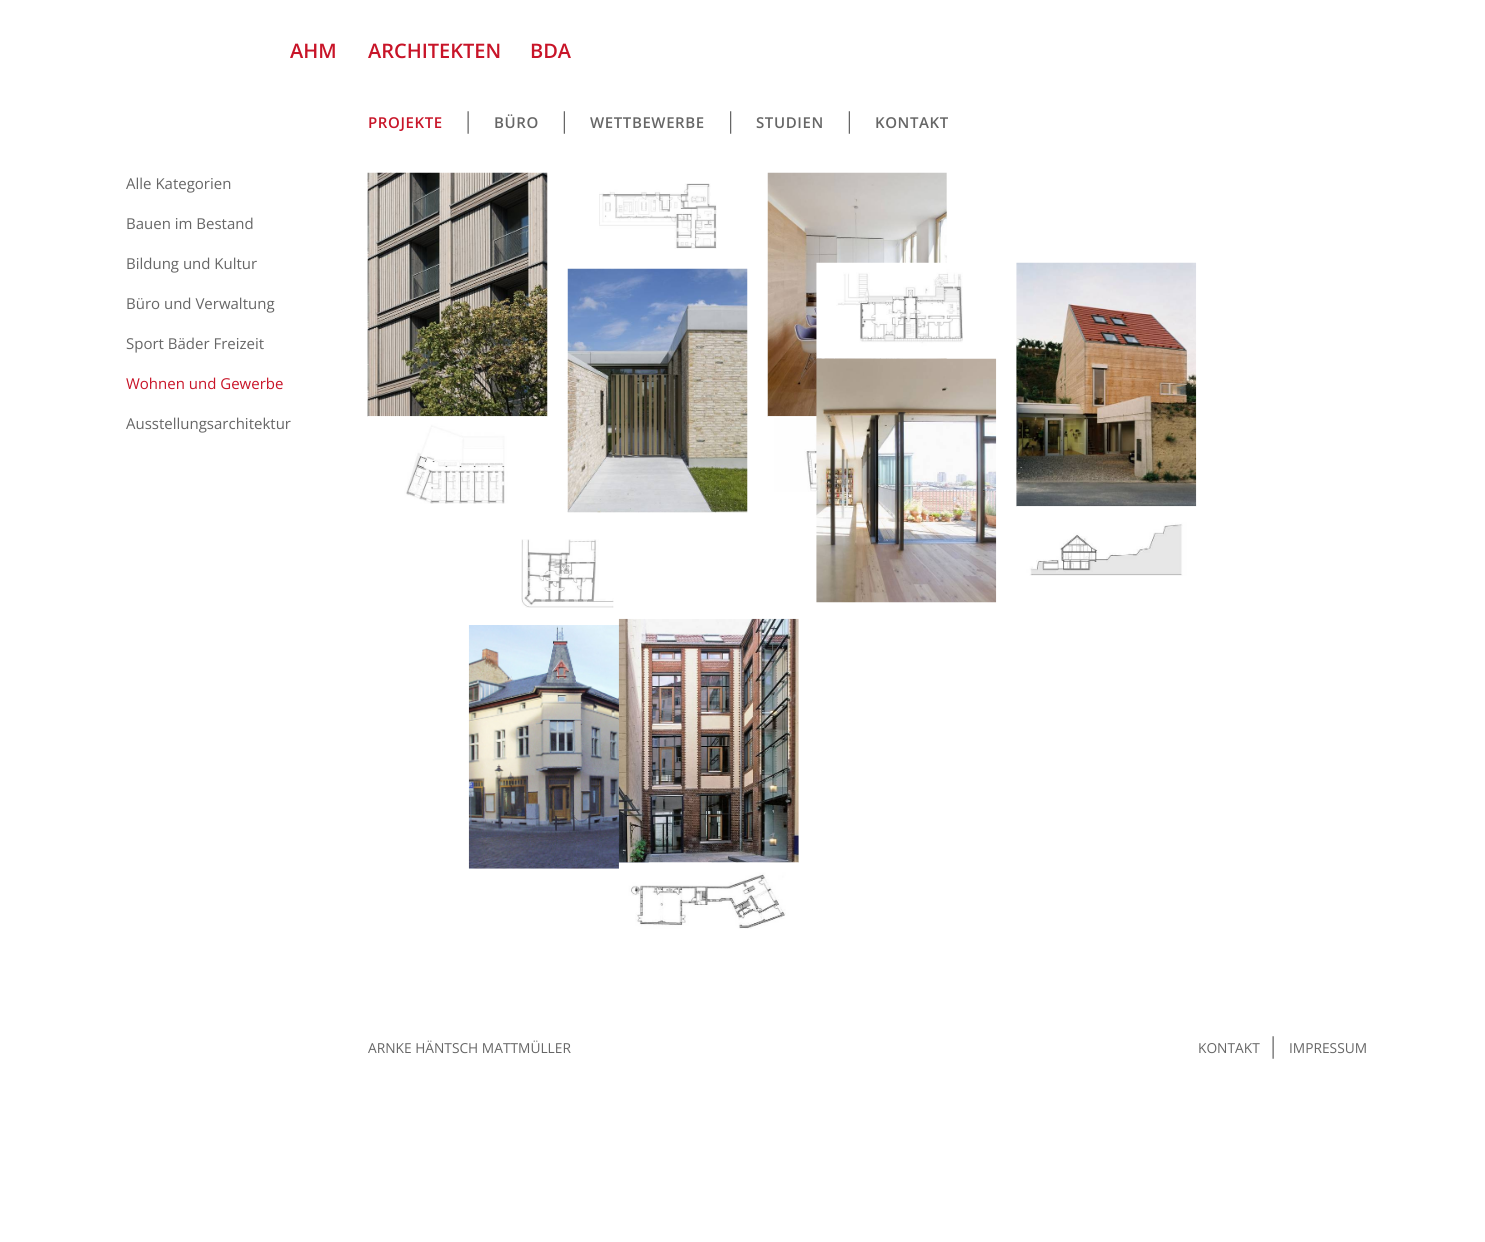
import math
import cairo

surface = cairo.ImageSurface(cairo.Format.RGB24, 1485, 1242)
ctx = cairo.Context(surface)
options = cairo.FontOptions()
options.set_hint_metrics(cairo.HintMetrics.OFF)
options.set_hint_style(cairo.HintStyle.NONE)
ctx.set_font_options(options)
ctx.set_miter_limit(4)


def ink(r, g, b):
    ctx.set_source_rgb(r / 255, g / 255, b / 255)


def write(x, y, s, family, size, color, bold=False, italic=False):
    ctx.select_font_face(family, cairo.FontSlant.ITALIC if italic else cairo.FontSlant.NORMAL, cairo.FontWeight.BOLD if bold else cairo.FontWeight.NORMAL)
    ctx.set_font_size(size)
    ink(*color)
    ctx.move_to(x, y)
    ctx.show_text(s)


def write_spaced(x, y, s, letter, word):
    ctx.move_to(x, y)
    for ch in s:
        ctx.show_text(ch)
        ctx.rel_move_to(letter + word * (ch == ' '), 0)


def paste(path, x, y, w, h):
    ctx.save()
    ctx.set_source_surface(cairo.ImageSurface.create_from_png(path), x, y)
    ctx.rectangle(x, y, w, h)
    ctx.fill()
    ctx.restore()


s1 = dict(family="Open Sans SemiBold", size=20, color=(200, 20, 40))
s2 = dict(family="Open Sans", size=15, color=(102, 102, 102))
s3 = dict(family="Open Sans", size=15, color=(200, 20, 40))
s4 = dict(family="Open Sans", size=13.75, color=(102, 102, 102))

ink(255, 255, 255)
ctx.paint()
write(290, 58, "AHM", **s1)
write(368, 58, "ARCHITEKTEN", **s1)
write(530, 58, "BDA", **s1)
paste("pic1.png", 467, 111, 2, 23)
ctx.set_font_size(15)
write_spaced(368, 128, "PROJEKTE", 0.6, 0)
paste("pic2.png", 563, 111, 2, 23)
ink(102, 102, 102)
write_spaced(494, 128, "BÜRO", 0.6, 0)
paste("pic3.png", 730, 111, 2, 23)
write_spaced(590, 128, "WETTBEWERBE", 0.6, 0)
paste("pic2.png", 848, 111, 2, 23)
write_spaced(756, 128, "STUDIEN", 0.6, 0)
write_spaced(875, 128, "KONTAKT", 0.6, 0)
write(126, 189, "Alle Kategorien", **s2)
write(126, 229, "Bauen im Bestand", **s2)
write(126, 269, "Bildung und Kultur", **s2)
write(126, 309, "Büro und Verwaltung", **s2)
write(126, 349, "Sport Bäder Freizeit", **s2)
write(126, 389, "Wohnen und Gewerbe", **s3)
write(126, 429, "Ausstellungsarchitektur", **s2)
paste("pic4.png", 367, 172, 181, 245)
paste("pic5.png", 368, 416, 179, 88)
paste("pic6.png", 599, 183, 118, 66)
paste("pic7.png", 567, 268, 181, 245)
paste("pic8.png", 767, 172, 181, 245)
paste("pic9.png", 768, 416, 49, 76)
paste("pic10.png", 816, 262, 147, 97)
paste("pic11.png", 816, 358, 181, 245)
paste("pic12.png", 1016, 262, 181, 245)
paste("pic13.png", 1016, 506, 180, 70)
paste("pic14.png", 521, 539, 93, 69)
paste("pic15.png", 468, 625, 181, 244)
paste("pic16.png", 618, 618, 181, 245)
paste("pic17.png", 618, 862, 181, 67)
write(368, 1053, "ARNKE HÄNTSCH MATTMÜLLER", **s4)
write(1198, 1053, "KONTAKT", **s4)
paste("pic1.png", 1272, 1036, 2, 23)
write(1289, 1053, "IMPRESSUM", **s4)
surface.write_to_png("screenshot.png")
